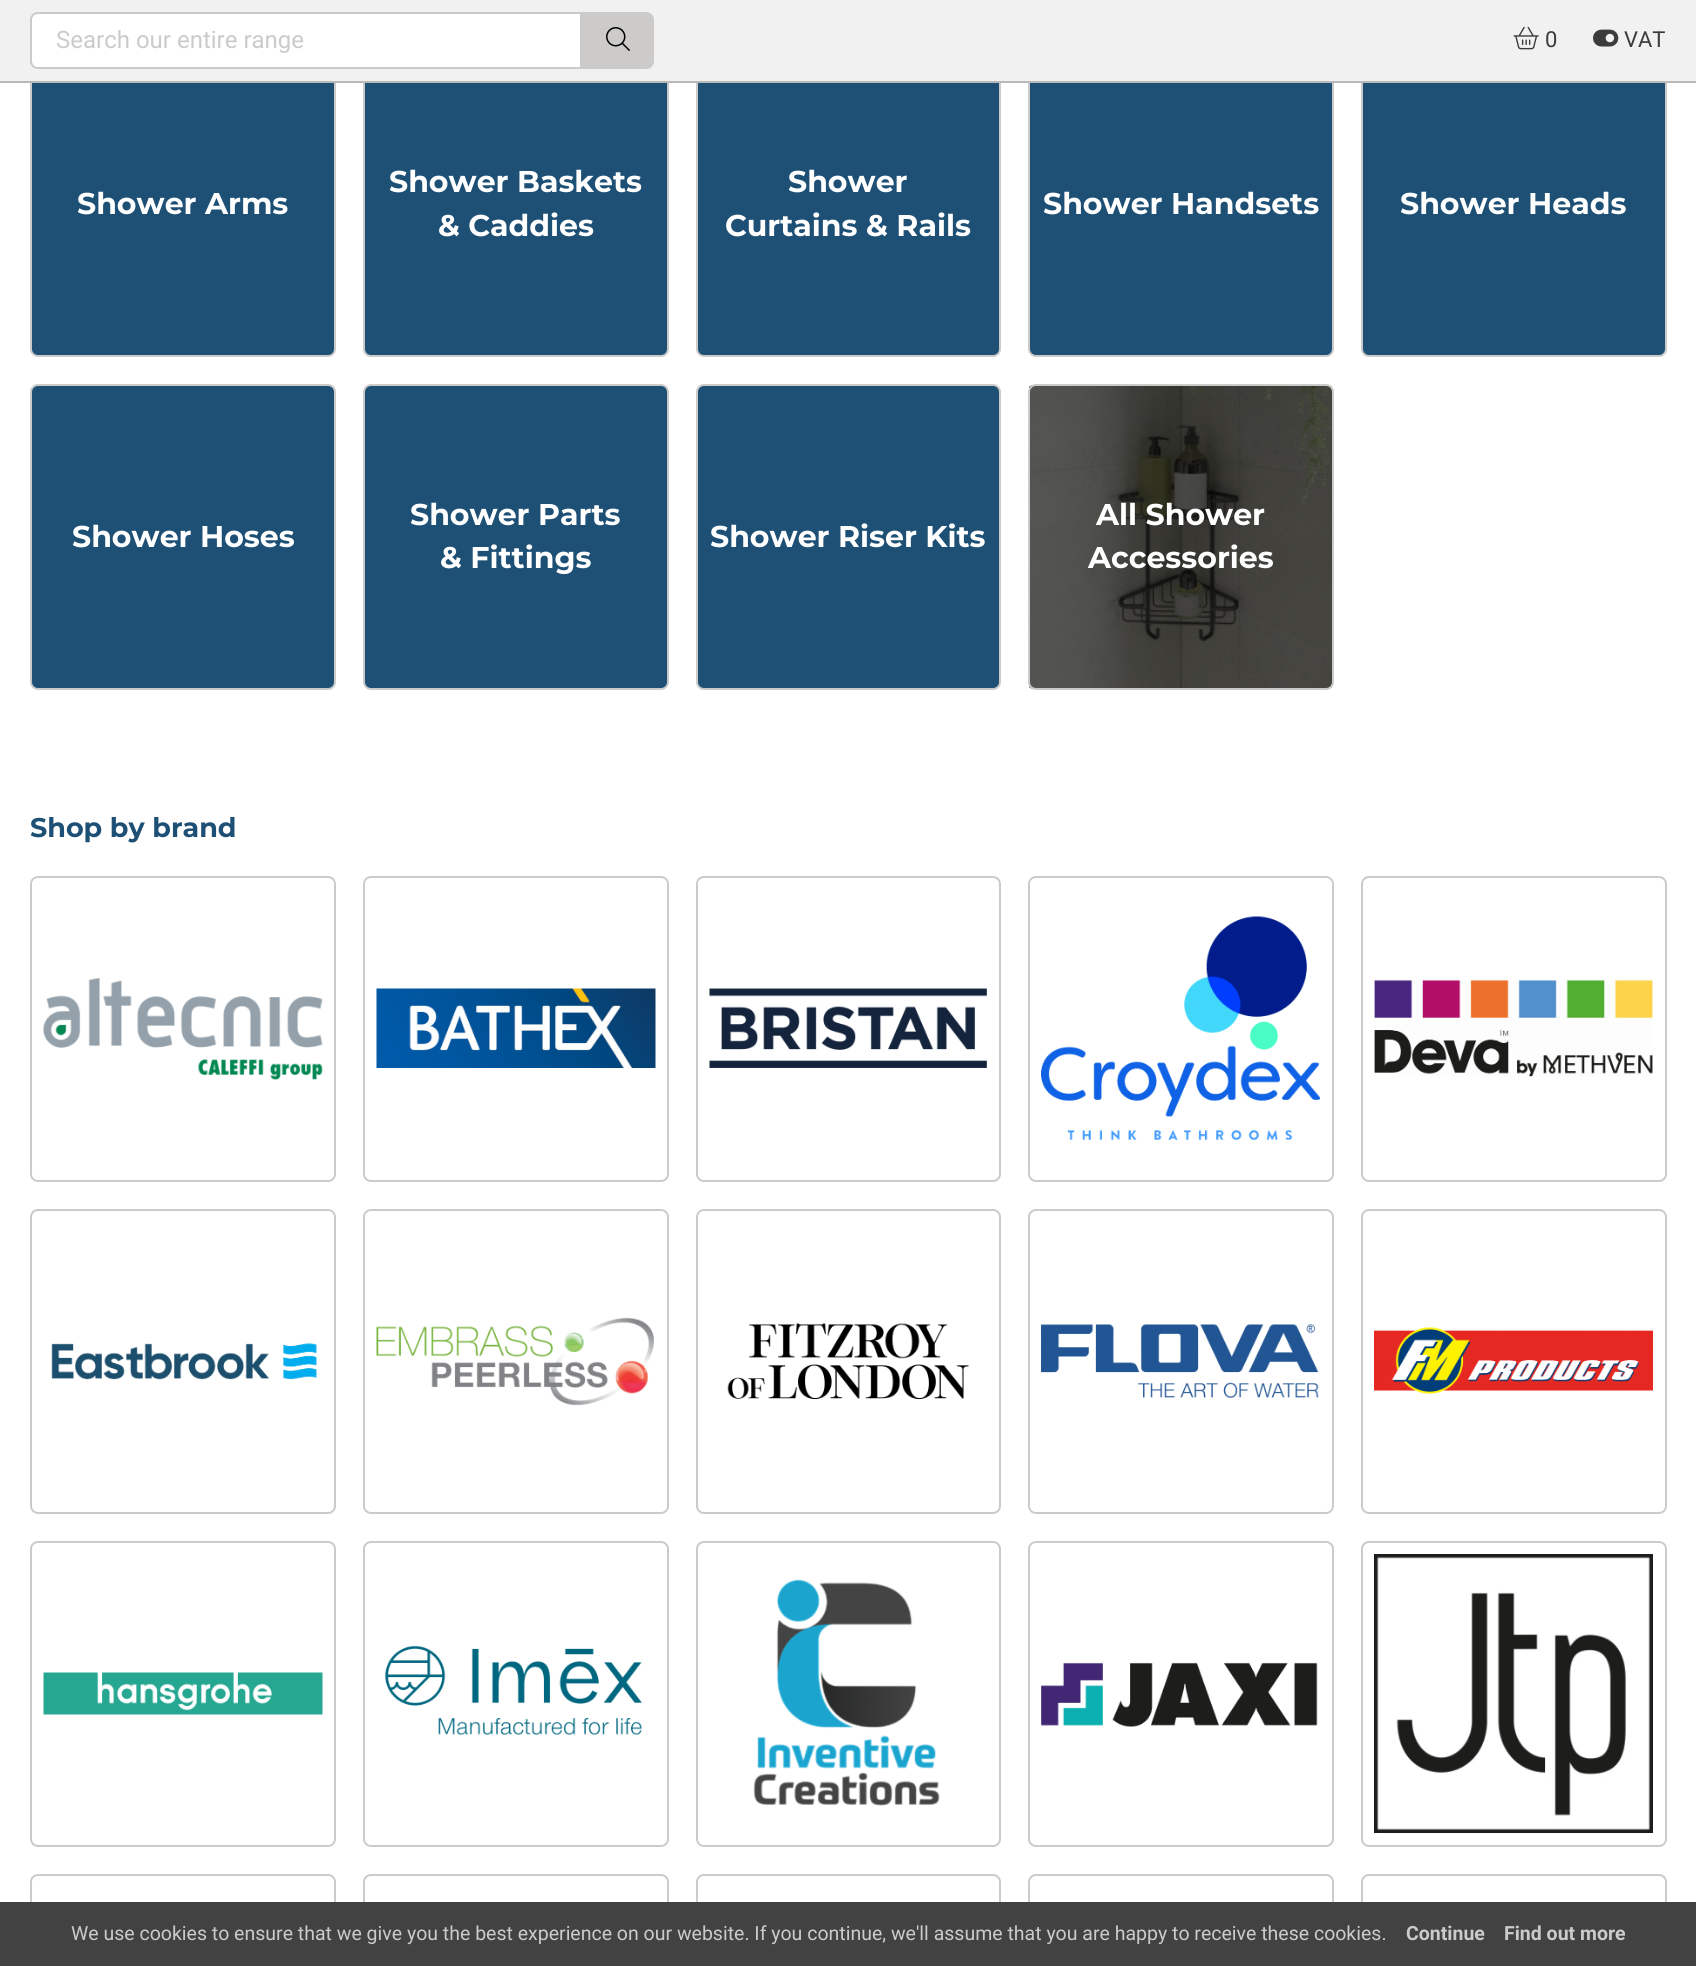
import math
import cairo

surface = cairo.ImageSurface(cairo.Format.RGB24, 1696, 1966)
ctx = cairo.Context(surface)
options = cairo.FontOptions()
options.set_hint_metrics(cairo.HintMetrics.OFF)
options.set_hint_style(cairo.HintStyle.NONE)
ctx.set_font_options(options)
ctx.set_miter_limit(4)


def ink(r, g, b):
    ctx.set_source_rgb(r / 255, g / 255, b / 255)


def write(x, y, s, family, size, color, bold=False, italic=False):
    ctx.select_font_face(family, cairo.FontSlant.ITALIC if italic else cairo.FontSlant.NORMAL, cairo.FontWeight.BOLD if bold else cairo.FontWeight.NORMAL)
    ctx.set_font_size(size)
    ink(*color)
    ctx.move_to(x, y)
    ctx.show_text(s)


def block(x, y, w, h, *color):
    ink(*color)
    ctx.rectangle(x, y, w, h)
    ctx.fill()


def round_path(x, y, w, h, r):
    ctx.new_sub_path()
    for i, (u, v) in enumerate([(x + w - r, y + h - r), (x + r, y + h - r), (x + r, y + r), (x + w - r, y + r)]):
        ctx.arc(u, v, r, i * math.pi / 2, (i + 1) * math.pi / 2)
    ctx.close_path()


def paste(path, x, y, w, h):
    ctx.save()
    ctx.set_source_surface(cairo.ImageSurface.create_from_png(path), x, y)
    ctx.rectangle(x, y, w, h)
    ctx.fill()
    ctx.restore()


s1 = dict(family="Roboto", size=24, color=(204, 203, 202))
s2 = dict(family="Roboto", size=22, color=(60, 60, 60))
s3 = dict(family="Montserrat", size=30, color=(255, 255, 255), bold=True)
s4 = dict(family="Montserrat", size=27, color=(30, 80, 118), bold=True)
s5 = dict(family="Roboto", size=19.5, color=(204, 203, 202))
s6 = dict(family="Roboto", size=19.5, color=(204, 203, 202), bold=True)

ink(255, 255, 255)
ctx.paint()
ink(30, 80, 118)
round_path(31, 52, 304, 304, 7)
ctx.fill_preserve()
ink(204, 203, 202)
ctx.stroke()
ink(30, 80, 118)
round_path(364, 52, 304, 304, 7)
ctx.fill_preserve()
ink(204, 203, 202)
ctx.stroke()
ink(30, 80, 118)
round_path(697, 52, 303, 304, 7)
ctx.fill_preserve()
ink(204, 203, 202)
ctx.stroke()
ink(30, 80, 118)
round_path(1029, 52, 304, 304, 7)
ctx.fill_preserve()
ink(204, 203, 202)
ctx.stroke()
ink(30, 80, 118)
round_path(1362, 52, 304, 304, 7)
ctx.fill_preserve()
ink(204, 203, 202)
ctx.stroke()
block(0, 0, 1696, 81, 241, 241, 241)
block(0, 81, 1696, 2, 185, 185, 185)
ink(255, 255, 255)
ctx.new_path()
ctx.move_to(38, 13)
ctx.line_to(581, 13)
ctx.line_to(581, 68)
ctx.line_to(38, 68)
ctx.curve_to(34, 68, 31, 65, 31, 61)
ctx.line_to(31, 20)
ctx.curve_to(31, 16, 34, 13, 38, 13)
ctx.close_path()
ctx.fill_preserve()
ink(204, 203, 202)
ctx.stroke()
write(56, 48, "Search our entire range", **s1)
ctx.new_path()
ctx.move_to(583, 13)
ctx.line_to(646, 13)
ctx.curve_to(650, 13, 653, 16, 653, 20)
ctx.line_to(653, 61)
ctx.curve_to(653, 65, 650, 68, 646, 68)
ctx.line_to(583, 68)
ctx.close_path()
ctx.fill_preserve()
ctx.stroke()
paste("pic1.png", 606, 27, 24, 24)
paste("pic2.png", 1513, 26, 26, 24)
write(1545, 47, "0", **s2)
paste("pic3.png", 1593, 29, 26, 18)
write(1624, 47, "VAT", **s2)
write(77, 214, "Shower Arms", **s3)
write(389, 192, "Shower Baskets", **s3)
write(438, 236, "& Caddies", **s3)
write(788, 192, "Shower", **s3)
write(725, 236, "Curtains & Rails", **s3)
write(1043, 214, "Shower Handsets", **s3)
write(1400, 214, "Shower Heads", **s3)
ink(30, 80, 118)
round_path(31, 385, 304, 304, 7)
ctx.fill_preserve()
ink(204, 203, 202)
ctx.stroke()
write(72, 547, "Shower Hoses", **s3)
ink(30, 80, 118)
round_path(364, 385, 304, 304, 7)
ctx.fill_preserve()
ink(204, 203, 202)
ctx.stroke()
write(410, 525, "Shower Parts", **s3)
write(440, 568, "& Fittings", **s3)
ink(30, 80, 118)
round_path(697, 385, 303, 304, 7)
ctx.fill_preserve()
ink(204, 203, 202)
ctx.stroke()
write(710, 547, "Shower Riser Kits", **s3)
paste("pic4.png", 1029, 385, 303, 304)
round_path(1029, 385, 304, 304, 7)
ink(204, 203, 202)
ctx.stroke()
write(1096, 525, "All Shower", **s3)
write(1088, 568, "Accessories", **s3)
write(30, 837, "Shop by brand", **s4)
paste("pic5.png", 43, 978, 280, 102)
round_path(31, 877, 304, 304, 7)
ink(204, 203, 202)
ctx.stroke()
paste("pic6.png", 376, 988, 280, 80)
round_path(364, 877, 304, 304, 7)
ctx.stroke()
paste("pic7.png", 709, 988, 278, 80)
round_path(697, 877, 303, 304, 7)
ctx.stroke()
paste("pic8.png", 1041, 916, 279, 224)
round_path(1029, 877, 304, 304, 7)
ctx.stroke()
paste("pic9.png", 1374, 979, 279, 98)
round_path(1362, 877, 304, 304, 7)
ctx.stroke()
paste("pic10.png", 51, 1343, 266, 37)
round_path(31, 1210, 304, 303, 7)
ctx.stroke()
paste("pic11.png", 376, 1317, 278, 89)
round_path(364, 1210, 304, 303, 7)
ctx.stroke()
paste("pic12.png", 727, 1323, 242, 77)
round_path(697, 1210, 303, 303, 7)
ctx.stroke()
paste("pic13.png", 1041, 1324, 278, 74)
round_path(1029, 1210, 304, 303, 7)
ctx.stroke()
paste("pic14.png", 1374, 1327, 279, 67)
round_path(1362, 1210, 304, 303, 7)
ctx.stroke()
paste("pic15.png", 43, 1672, 280, 43)
round_path(31, 1542, 304, 304, 7)
ctx.stroke()
paste("pic16.png", 385, 1645, 258, 90)
round_path(364, 1542, 304, 304, 7)
ctx.stroke()
paste("pic17.png", 753, 1579, 187, 227)
round_path(697, 1542, 303, 304, 7)
ctx.stroke()
paste("pic18.png", 1041, 1662, 277, 65)
round_path(1029, 1542, 304, 304, 7)
ctx.stroke()
paste("pic19.png", 1374, 1554, 279, 279)
round_path(1362, 1542, 304, 304, 7)
ctx.stroke()
round_path(31, 1875, 304, 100, 7)
ctx.stroke()
round_path(364, 1875, 304, 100, 7)
ctx.stroke()
round_path(697, 1875, 303, 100, 7)
ctx.stroke()
round_path(1029, 1875, 304, 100, 7)
ctx.stroke()
round_path(1362, 1875, 304, 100, 7)
ctx.stroke()
block(0, 1902, 1696, 64, 66, 66, 66)
write(71, 1940, "We use cookies to ensure that we give you the best experience on our website. If you continue, we'll assume that you are happy to receive these cookies.", **s5)
write(1406, 1940, "Continue", **s6)
write(1504, 1940, "Find out more", **s6)
surface.write_to_png("screenshot.png")
